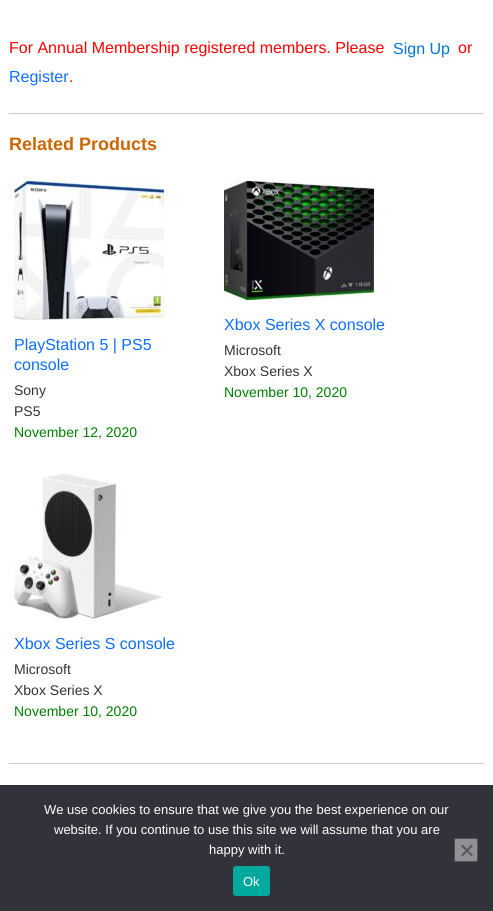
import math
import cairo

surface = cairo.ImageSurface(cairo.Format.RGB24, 493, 911)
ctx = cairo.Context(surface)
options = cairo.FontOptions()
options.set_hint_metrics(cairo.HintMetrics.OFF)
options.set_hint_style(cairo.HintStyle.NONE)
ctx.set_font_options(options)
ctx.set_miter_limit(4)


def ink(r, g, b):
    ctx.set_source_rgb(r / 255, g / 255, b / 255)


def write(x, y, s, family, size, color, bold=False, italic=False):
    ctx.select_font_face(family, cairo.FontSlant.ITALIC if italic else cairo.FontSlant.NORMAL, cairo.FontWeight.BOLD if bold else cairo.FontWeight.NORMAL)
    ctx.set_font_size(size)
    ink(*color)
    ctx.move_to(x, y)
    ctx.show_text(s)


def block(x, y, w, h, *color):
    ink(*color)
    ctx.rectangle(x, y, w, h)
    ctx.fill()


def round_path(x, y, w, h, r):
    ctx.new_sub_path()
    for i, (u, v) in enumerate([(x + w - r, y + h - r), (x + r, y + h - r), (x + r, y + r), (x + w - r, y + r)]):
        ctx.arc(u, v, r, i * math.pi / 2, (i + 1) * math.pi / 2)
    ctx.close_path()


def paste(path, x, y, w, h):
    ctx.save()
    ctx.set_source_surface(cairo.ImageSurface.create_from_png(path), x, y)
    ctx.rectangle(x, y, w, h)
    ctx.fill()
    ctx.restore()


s1 = dict(family="Liberation Sans", size=16, color=(255, 0, 0))
s2 = dict(family="Liberation Sans", size=16, color=(2, 117, 216))
s3 = dict(family="Liberation Sans", size=16, color=(13, 110, 253))
s4 = dict(family="Liberation Sans", size=18, color=(204, 102, 0), bold=True)
s5 = dict(family="Liberation Sans", size=14, color=(51, 51, 51))
s6 = dict(family="Liberation Sans", size=14, color=(0, 128, 0))
s7 = dict(family="Liberation Sans", size=13, color=(255, 255, 255))

ink(255, 255, 255)
ctx.paint()
write(9, 53, "For Annual Membership registered members. Please", **s1)
write(393, 54, "Sign Up", **s2)
write(458, 53, "or", **s1)
write(9, 82, "Register", **s3)
write(69, 82, ".", **s1)
block(9, 113, 475, 1, 204, 204, 204)
write(9, 150, "Related Products", **s4)
paste("pic1.png", 14, 181, 150, 139)
write(14, 350, "PlayStation 5 | PS5", **s3)
write(14, 370, "console", **s3)
write(14, 395, "Sony", **s5)
write(14, 416, "PS5", **s5)
write(14, 437, "November 12, 2020", **s6)
paste("pic2.png", 224, 181, 150, 119)
write(224, 330, "Xbox Series X console", **s3)
write(224, 355, "Microsoft", **s5)
write(224, 376, "Xbox Series X", **s5)
write(224, 397, "November 10, 2020", **s6)
paste("pic3.png", 14, 473, 149, 146)
write(14, 649, "Xbox Series S console", **s3)
write(14, 674, "Microsoft", **s5)
write(14, 695, "Xbox Series X", **s5)
write(14, 716, "November 10, 2020", **s6)
block(9, 763, 475, 1, 204, 204, 204)
block(0, 785, 493, 126, 50, 50, 58)
write(44, 814, "We use cookies to ensure that we give you the best experience on our", **s7)
write(54, 834, "website. If you continue to use this site we will assume that you are", **s7)
write(209, 854, "happy with it.", **s7)
ink(145, 145, 149)
round_path(454.5, 838.5, 23, 23, 1.5)
ctx.fill_preserve()
ink(84, 84, 88)
ctx.set_line_width(1)
ctx.stroke()
ink(89, 89, 93)
ctx.new_path()
ctx.move_to(471.5, 844.5)
ctx.line_to(473, 846)
ctx.line_to(462.5, 856.5)
ctx.line_to(461, 855)
ctx.close_path()
ctx.fill()
ctx.new_path()
ctx.move_to(461, 846)
ctx.line_to(462.5, 844.5)
ctx.line_to(473, 855)
ctx.line_to(471.5, 856.5)
ctx.close_path()
ctx.fill()
ink(0, 169, 157)
round_path(233, 866, 37, 30, 3)
ctx.fill()
write(243, 886, "Ok", **s7)
surface.write_to_png("screenshot.png")
